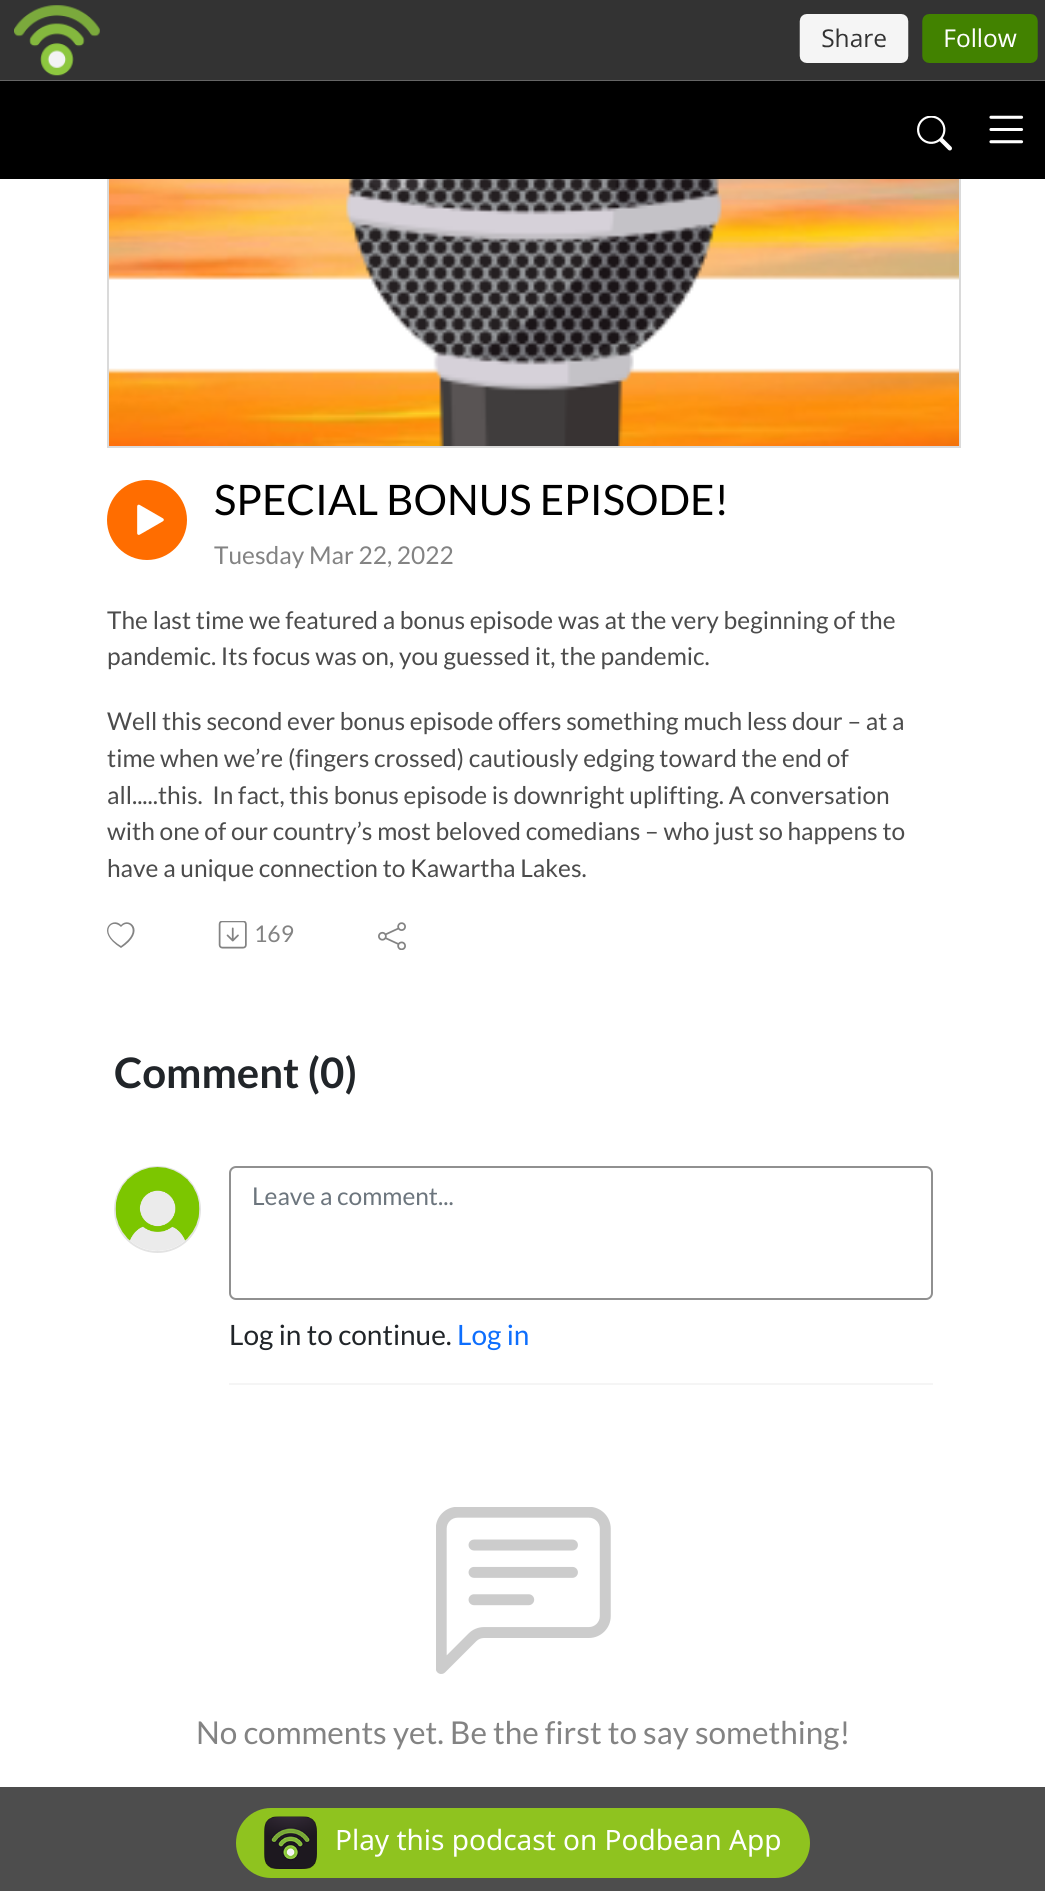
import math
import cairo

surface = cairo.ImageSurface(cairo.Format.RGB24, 1045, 1891)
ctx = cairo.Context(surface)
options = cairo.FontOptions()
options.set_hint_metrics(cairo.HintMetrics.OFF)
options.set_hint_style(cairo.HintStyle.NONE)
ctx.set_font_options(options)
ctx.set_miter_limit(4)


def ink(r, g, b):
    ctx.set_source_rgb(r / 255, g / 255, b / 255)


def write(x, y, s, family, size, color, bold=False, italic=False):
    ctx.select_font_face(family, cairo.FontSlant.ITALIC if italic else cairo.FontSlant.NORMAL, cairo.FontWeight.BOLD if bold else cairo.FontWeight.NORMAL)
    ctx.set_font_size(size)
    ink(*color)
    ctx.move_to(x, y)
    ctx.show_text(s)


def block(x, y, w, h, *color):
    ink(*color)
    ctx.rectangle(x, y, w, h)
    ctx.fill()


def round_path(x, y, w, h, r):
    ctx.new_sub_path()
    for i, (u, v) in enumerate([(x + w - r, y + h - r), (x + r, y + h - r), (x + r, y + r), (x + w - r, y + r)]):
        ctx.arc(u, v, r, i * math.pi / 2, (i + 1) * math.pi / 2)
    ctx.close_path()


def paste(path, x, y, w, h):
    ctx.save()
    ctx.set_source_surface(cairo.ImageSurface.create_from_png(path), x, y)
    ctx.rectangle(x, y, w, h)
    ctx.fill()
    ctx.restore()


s1 = dict(family="Lato", size=42, color=(0, 0, 0))
s2 = dict(family="Lato", size=24.5, color=(131, 131, 131))
s3 = dict(family="Lato", size=24.5, color=(76, 76, 76))
s4 = dict(family="Lato", size=23, color=(131, 131, 131))
s5 = dict(family="Lato", size=42, color=(33, 37, 41), bold=True)
s6 = dict(family="Lato", size=24.5, color=(108, 117, 125))
s7 = dict(family="Lato", size=28, color=(33, 37, 41))
s8 = dict(family="Lato", size=28, color=(13, 110, 253))
s9 = dict(family="Lato", size=31.5, color=(131, 131, 131))
s10 = dict(family="Noto Sans", size=28, color=(255, 255, 255))

ink(255, 255, 255)
ctx.paint()
ctx.rectangle(108, -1, 852, 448)
ink(218, 218, 218)
ctx.stroke()
block(0, 0, 1045, 5, 51, 51, 51)
paste("pic1.png", 0, 5, 1045, 76)
block(0, 81, 1045, 98, 0, 0, 0)
paste("pic2.png", 917, 116, 35, 35)
paste("pic3.png", 989, 115, 35, 29)
paste("pic4.png", 109, 179, 850, 267)
ink(255, 109, 0)
ctx.arc(147, 520, 40, 0, 2 * math.pi)
ctx.fill()
paste("pic5.png", 137, 504, 27, 31)
write(214, 515, "SPECIAL BONUS EPISODE!", **s1)
write(214, 564, "Tuesday Mar 22, 2022", **s2)
write(107, 629, "The last time we featured a bonus episode was at the very beginning of the", **s3)
write(107, 665, "pandemic. Its focus was on, you guessed it, the pandemic.", **s3)
write(107, 730, "Well this second ever bonus episode offers something much less dour – at a", **s3)
write(107, 767, "time when we’re (fingers crossed) cautiously edging toward the end of", **s3)
write(107, 804, "all.....this.  In fact, this bonus episode is downright uplifting. A conversation", **s3)
write(107, 840, "with one of our country’s most beloved comedians – who just so happens to", **s3)
write(107, 877, "have a unique connection to Kawartha Lakes.", **s3)
ink(131, 131, 131)
ctx.new_path()
ctx.move_to(121, 927)
ctx.curve_to(114, 920, 106, 926, 109, 934)
ctx.curve_to(111, 939, 116, 943, 121, 946)
ctx.curve_to(125, 943, 130, 939, 132, 934)
ctx.curve_to(135, 926, 127, 920, 121, 927)
ctx.close_path()
ctx.move_to(121, 948)
ctx.curve_to(94, 931, 113, 916, 121, 925)
ctx.curve_to(129, 916, 147, 931, 121, 948)
ctx.close_path()
ctx.fill()
paste("pic6.png", 218, 921, 29, 28)
write(254, 942, "169", **s4)
paste("pic7.png", 378, 922, 28, 28)
write(114, 1088, "Comment (0)", **s5)
ctx.new_path()
ctx.arc(157.5, 1209.5, 42.5, 0, 2 * math.pi)
ink(227, 227, 227)
ctx.stroke()
paste("pic8.png", 115, 1167, 85, 84)
block(229, 1383, 704, 2, 245, 245, 245)
round_path(230, 1167, 702, 132, 6)
ink(144, 144, 144)
ctx.stroke()
write(252, 1205, "Leave a comment...", **s6)
write(229, 1345, "Log in to continue.", **s7)
write(457, 1345, "Log in", **s8)
paste("pic9.png", 436, 1507, 175, 167)
write(196, 1744, "No comments yet. Be the first to say something!", **s9)
block(0, 1787, 1045, 104, 77, 77, 77)
ink(143, 195, 31)
round_path(236, 1808, 574, 70, 35)
ctx.fill()
paste("pic10.png", 264, 1816, 53, 53)
write(335, 1850, "Play this podcast on Podbean App", **s10)
surface.write_to_png("screenshot.png")
